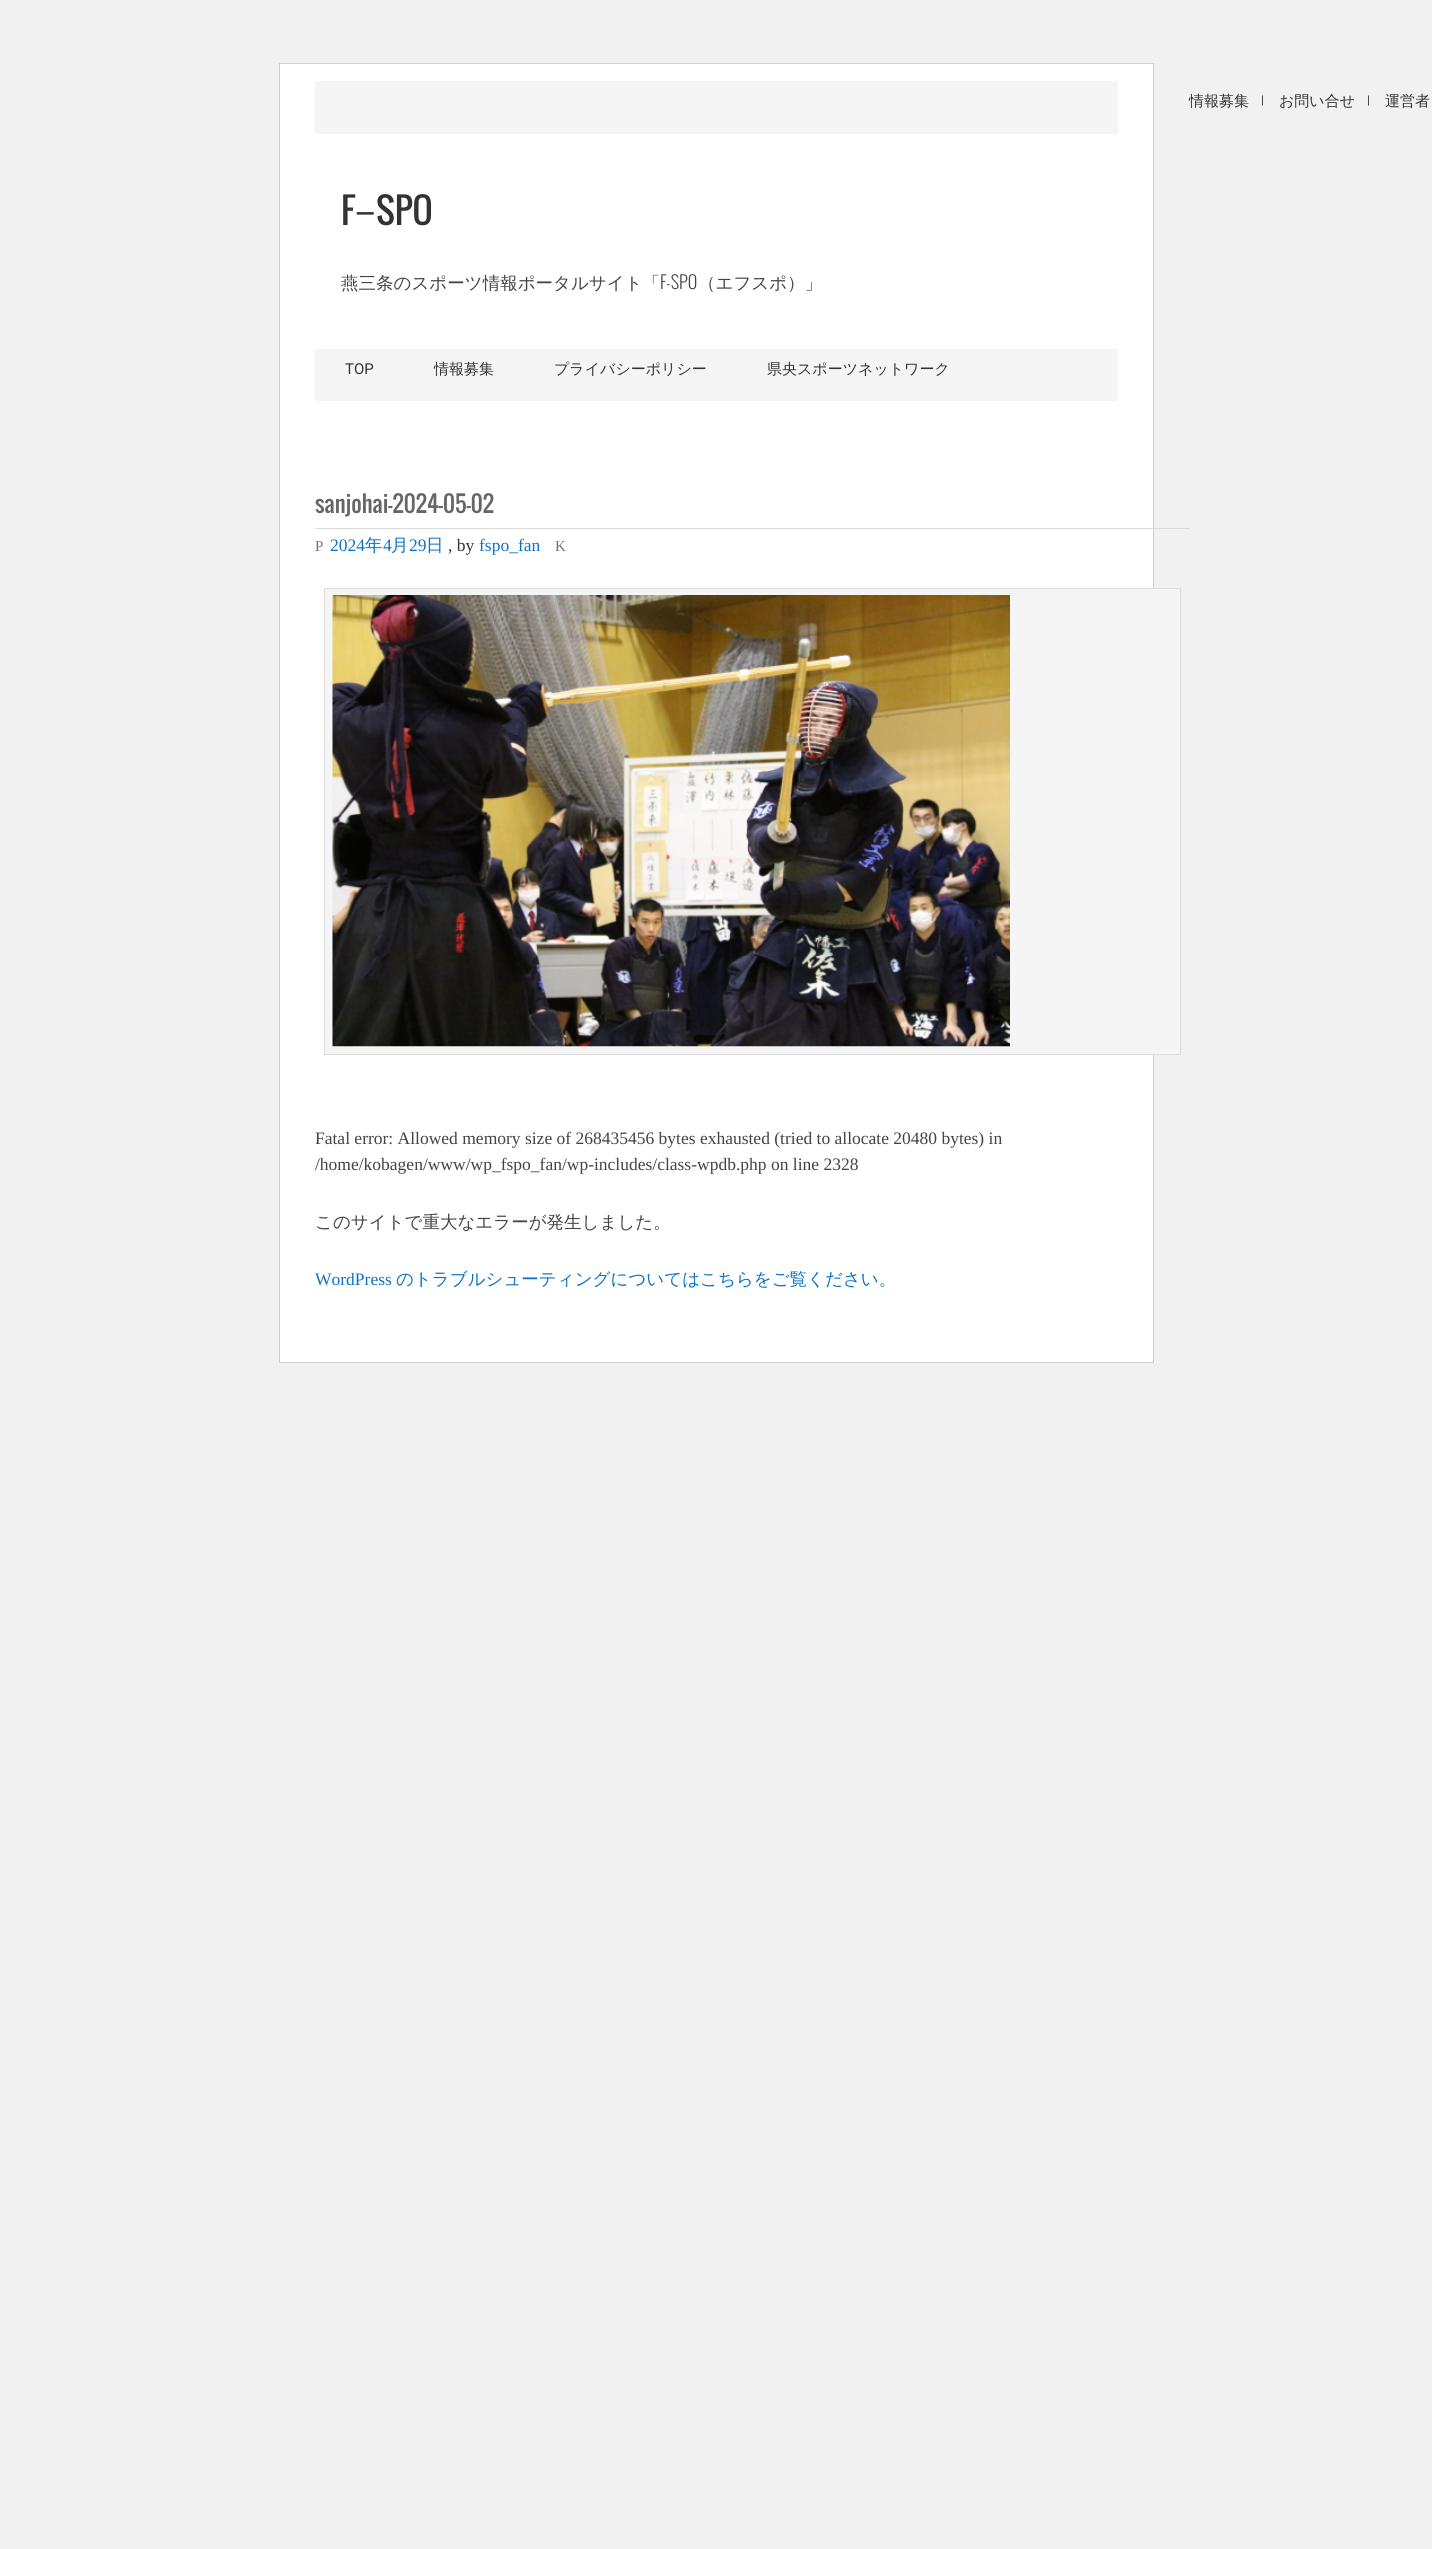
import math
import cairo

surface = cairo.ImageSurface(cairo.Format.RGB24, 1432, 2549)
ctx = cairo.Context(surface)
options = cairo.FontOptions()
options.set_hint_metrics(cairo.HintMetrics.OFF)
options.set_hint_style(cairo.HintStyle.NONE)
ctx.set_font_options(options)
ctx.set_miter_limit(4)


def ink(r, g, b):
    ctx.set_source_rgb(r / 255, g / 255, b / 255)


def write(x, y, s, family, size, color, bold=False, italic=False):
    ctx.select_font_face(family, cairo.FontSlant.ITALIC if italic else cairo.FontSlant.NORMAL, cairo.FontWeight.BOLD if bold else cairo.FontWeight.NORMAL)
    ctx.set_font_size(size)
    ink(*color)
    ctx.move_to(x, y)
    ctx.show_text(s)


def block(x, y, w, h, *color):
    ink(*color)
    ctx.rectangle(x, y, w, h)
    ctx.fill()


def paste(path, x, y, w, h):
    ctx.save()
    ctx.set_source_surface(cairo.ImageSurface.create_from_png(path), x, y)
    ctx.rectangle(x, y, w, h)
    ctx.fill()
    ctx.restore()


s1 = dict(family="WenQuanYi Zen Hei Medium", size=15, color=(51, 51, 51))
s2 = dict(family="Roboto", size=12, color=(51, 51, 51))
s3 = dict(family="Oswald", size=35, color=(51, 51, 51))
s4 = dict(family="Liberation Sans", size=35, color=(51, 51, 51))
s5 = dict(family="WenQuanYi Zen Hei Medium", size=17.5, color=(68, 68, 68))
s6 = dict(family="Oswald Light", size=17.5, color=(68, 68, 68))
s7 = dict(family="Roboto", size=15, color=(51, 51, 51))
s8 = dict(family="Oswald", size=22.5, color=(102, 102, 102))
s9 = dict(family="Liberation Serif", size=15, color=(115, 115, 115))
s10 = dict(family="Liberation Serif", size=17.5, color=(13, 114, 199))
s11 = dict(family="WenQuanYi Zen Hei Medium", size=17.5, color=(13, 114, 199))
s12 = dict(family="Liberation Serif", size=17.5, color=(51, 51, 51))
s13 = dict(family="Liberation Serif", size=17.5, color=(68, 68, 68))

ink(241, 241, 241)
ctx.paint()
ink(255, 255, 255)
ctx.rectangle(279.5, 63.5, 874, 1299)
ctx.fill_preserve()
ink(204, 208, 212)
ctx.set_line_width(1)
ctx.stroke()
block(315, 81, 803, 53, 245, 245, 245)
write(1189, 106, "情報募集", **s1)
write(1261, 104, "|", **s2)
write(1279, 106, "お問い合せ", **s1)
write(1367, 104, "|", **s2)
write(1385, 106, "運営者", **s1)
write(341, 225, "F", **s3)
write(355, 225, "−", **s4)
write(376, 225, "SPO", **s3)
write(341, 289, "燕三条のスポーツ情報ポータルサイト「", **s5)
write(660, 289, "F-SPO", **s6)
write(698, 289, "（エフスポ）」", **s5)
block(315, 349, 803, 52, 245, 245, 245)
write(345, 374, "TOP", **s7)
write(434, 374, "情報募集", **s1)
write(554, 374, "プライバシーポリシー", **s1)
write(767, 374, "県央スポーツネットワーク", **s1)
block(315, 528, 875, 1, 218, 218, 218)
write(315, 513, "sanjohai-2024-05-02", **s8)
write(315, 551, "P", **s9)
write(330, 551, "2024", **s10)
write(365, 551, "年", **s11)
write(383, 551, "4", **s10)
write(391, 551, "月", **s11)
write(409, 551, "29", **s10)
write(426, 551, "日", **s11)
write(448, 551, ", by", **s12)
write(479, 551, "fspo_fan", **s10)
write(555, 551, "K", **s9)
ink(245, 245, 245)
ctx.rectangle(324.5, 588.5, 856, 466)
ctx.fill_preserve()
ink(221, 221, 221)
ctx.stroke()
paste("pic1.png", 332, 595, 678, 452)
write(315, 1144, "Fatal error: Allowed memory size of 268435456 bytes exhausted (tried to allocate 20480 bytes) in", **s13)
write(315, 1170, "/home/kobagen/www/wp_fspo_fan/wp-includes/class-wpdb.php on line 2328", **s13)
write(315, 1228, "このサイトで重大なエラーが発生しました。", **s5)
write(315, 1285, "WordPress", **s10)
write(396, 1285, "のトラブルシューティングについてはこちらをご覧ください。", **s11)
surface.write_to_png("screenshot.png")
